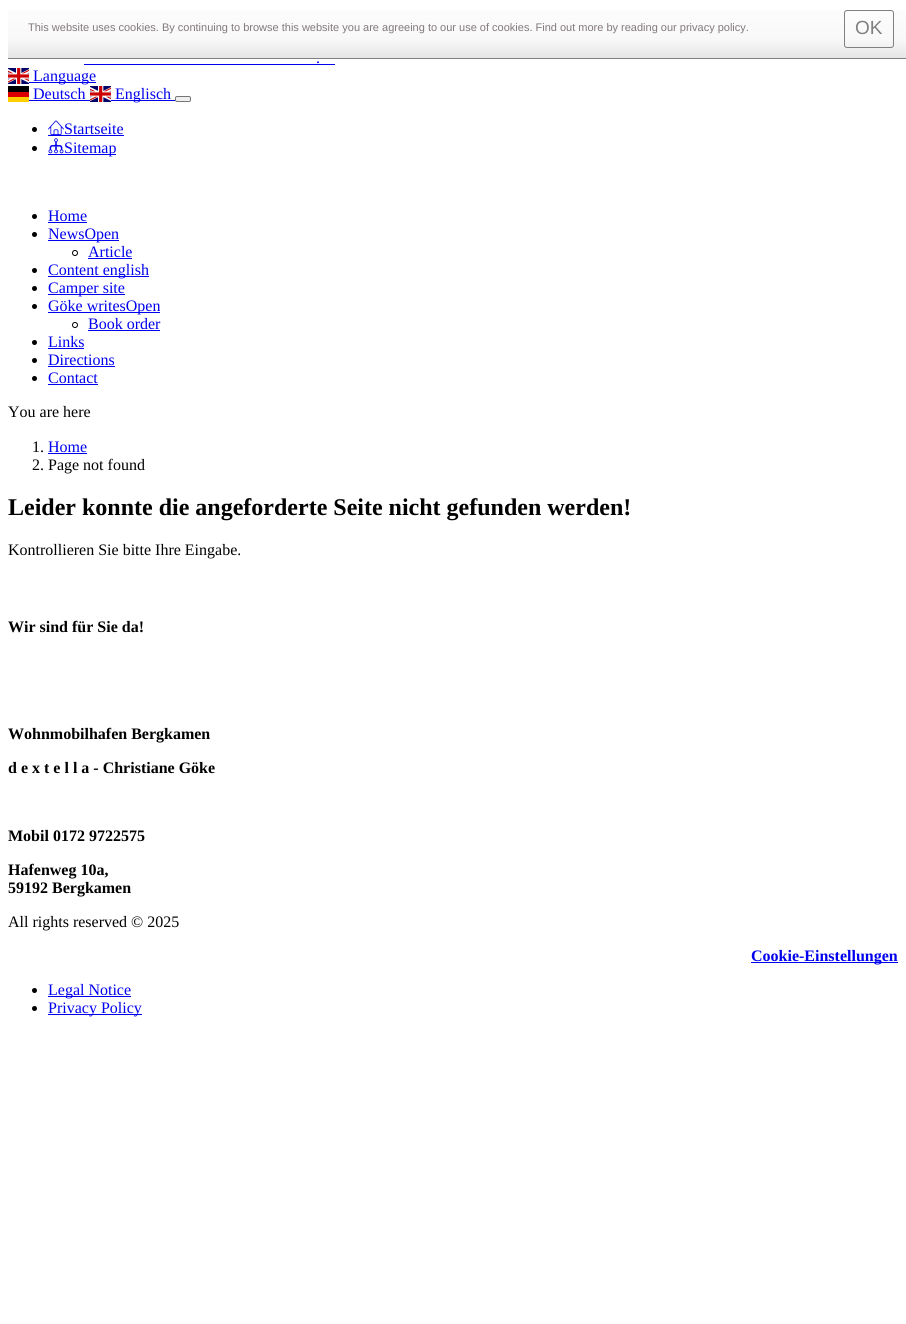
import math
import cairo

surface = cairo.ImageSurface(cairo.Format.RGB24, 906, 1324)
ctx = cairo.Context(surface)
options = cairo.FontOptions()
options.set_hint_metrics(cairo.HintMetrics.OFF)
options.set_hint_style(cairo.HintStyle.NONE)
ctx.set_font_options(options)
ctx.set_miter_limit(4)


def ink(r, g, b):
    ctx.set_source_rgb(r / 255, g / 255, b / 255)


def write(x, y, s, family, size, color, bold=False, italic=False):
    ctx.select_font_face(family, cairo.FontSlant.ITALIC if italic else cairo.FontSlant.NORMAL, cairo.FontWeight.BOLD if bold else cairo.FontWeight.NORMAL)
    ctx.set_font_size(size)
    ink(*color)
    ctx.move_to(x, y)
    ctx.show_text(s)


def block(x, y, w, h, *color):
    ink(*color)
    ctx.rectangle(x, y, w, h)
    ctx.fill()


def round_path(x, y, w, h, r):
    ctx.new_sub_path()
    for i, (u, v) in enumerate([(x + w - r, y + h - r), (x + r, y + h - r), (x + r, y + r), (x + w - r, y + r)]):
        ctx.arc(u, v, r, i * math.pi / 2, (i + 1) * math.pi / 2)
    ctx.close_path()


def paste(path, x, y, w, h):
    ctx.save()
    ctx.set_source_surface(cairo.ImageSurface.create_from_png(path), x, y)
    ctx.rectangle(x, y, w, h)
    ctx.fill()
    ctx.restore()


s1 = dict(family="Liberation Sans", size=11, color=(130, 120, 125))
s2 = dict(family="Liberation Sans", size=19, color=(128, 128, 128))
s3 = dict(family="Liberation Serif", size=16, color=(0, 0, 238))
s4 = dict(family="Liberation Serif", size=16, color=(0, 0, 0))
s5 = dict(family="Liberation Serif", size=24, color=(0, 0, 0), bold=True)
s6 = dict(family="Liberation Serif", size=16, color=(0, 0, 0), bold=True)
s7 = dict(family="Liberation Serif", size=16, color=(0, 0, 238), bold=True)

ink(255, 255, 255)
ctx.paint()
gradient = cairo.LinearGradient(461, 0, 461, 58)
gradient.add_color_stop_rgba(0, 0.996, 0.996, 0.996, 1)
gradient.add_color_stop_rgba(0.68, 0.973, 0.973, 0.973, 1)
gradient.add_color_stop_rgba(1, 0.902, 0.902, 0.902, 1)
ctx.set_source(gradient)
ctx.rectangle(8, 10, 898, 48)
ctx.fill()
block(8, 58, 898, 1, 128, 128, 128)
write(28, 31, "This website uses cookies. By continuing to browse this website you are agreeing to our use of cookies. Find out more by reading our privacy policy.", **s1)
round_path(844.5, 10.5, 49, 37, 2.5)
ink(128, 128, 128)
ctx.set_line_width(1)
ctx.stroke()
write(855, 34, "OK", **s2)
write(316, 63, ".", **s3)
block(84, 64, 251, 1, 0, 0, 238)
paste("pic1.png", 8, 68, 21, 16)
block(29, 82, 67, 1, 0, 0, 238)
write(33, 81, "Language", **s3)
block(8, 97, 21, 5, 255, 206, 0)
block(8, 86, 21, 6, 0, 0, 0)
block(8, 92, 21, 5, 221, 0, 0)
write(33, 99, "Deutsch", **s3)
block(29, 100, 61, 1, 0, 0, 238)
paste("pic1.png", 90, 86, 21, 16)
block(111, 100, 64, 1, 0, 0, 238)
write(115, 99, "Englisch", **s3)
ink(239, 239, 239)
round_path(175.5, 96.5, 15, 5, 1.5)
ctx.fill_preserve()
ink(118, 118, 118)
ctx.stroke()
ink(0, 0, 0)
ctx.arc(34.5, 129.5, 2.5, 0, 2 * math.pi)
ctx.fill()
paste("pic2.png", 48, 120, 16, 15)
write(64, 134, "Startseite", **s3)
block(48, 135, 76, 1, 0, 0, 238)
ink(0, 0, 0)
ctx.new_path()
ctx.arc(34.5, 148.5, 2.5, 0, 2 * math.pi)
ctx.fill()
paste("pic3.png", 48, 138, 16, 16)
block(48, 154, 68, 1, 0, 0, 238)
write(64, 153, "Sitemap", **s3)
ink(0, 0, 0)
ctx.new_path()
ctx.arc(34.5, 216.5, 2.5, 0, 2 * math.pi)
ctx.fill()
write(48, 221, "Home", **s3)
block(48, 222, 39, 1, 0, 0, 238)
ink(0, 0, 0)
ctx.new_path()
ctx.arc(34.5, 234.5, 2.5, 0, 2 * math.pi)
ctx.fill()
block(48, 240, 71, 1, 0, 0, 238)
write(48, 239, "NewsOpen", **s3)
ctx.new_path()
ctx.arc(75, 253, 2.5, 0, 2 * math.pi)
ink(0, 0, 0)
ctx.stroke()
write(88, 257, "Article", **s3)
block(88, 258, 44, 1, 0, 0, 238)
ink(0, 0, 0)
ctx.new_path()
ctx.arc(34.5, 270.5, 2.5, 0, 2 * math.pi)
ctx.fill()
block(48, 276, 101, 1, 0, 0, 238)
write(48, 275, "Content english", **s3)
ink(0, 0, 0)
ctx.new_path()
ctx.arc(34.5, 288.5, 2.5, 0, 2 * math.pi)
ctx.fill()
block(48, 294, 77, 1, 0, 0, 238)
write(48, 293, "Camper site", **s3)
ink(0, 0, 0)
ctx.new_path()
ctx.arc(34.5, 306.5, 2.5, 0, 2 * math.pi)
ctx.fill()
block(48, 312, 112, 1, 0, 0, 238)
write(48, 311, "Göke writesOpen", **s3)
ctx.new_path()
ctx.arc(75, 325, 2.5, 0, 2 * math.pi)
ink(0, 0, 0)
ctx.stroke()
write(88, 329, "Book order", **s3)
block(88, 330, 72, 1, 0, 0, 238)
ink(0, 0, 0)
ctx.new_path()
ctx.arc(34.5, 342.5, 2.5, 0, 2 * math.pi)
ctx.fill()
write(48, 347, "Links", **s3)
block(48, 348, 36, 1, 0, 0, 238)
ink(0, 0, 0)
ctx.new_path()
ctx.arc(34.5, 360.5, 2.5, 0, 2 * math.pi)
ctx.fill()
write(48, 365, "Directions", **s3)
block(48, 366, 67, 1, 0, 0, 238)
ink(0, 0, 0)
ctx.new_path()
ctx.arc(34.5, 378.5, 2.5, 0, 2 * math.pi)
ctx.fill()
write(48, 383, "Contact", **s3)
block(48, 384, 50, 1, 0, 0, 238)
write(8, 417, "You are here", **s4)
write(32, 452, "1.", **s4)
write(48, 452, "Home", **s3)
block(48, 453, 39, 1, 0, 0, 238)
write(32, 470, "2. Page not found", **s4)
write(8, 515, "Leider konnte die angeforderte Seite nicht gefunden werden!", **s5)
write(8, 555, "Kontrollieren Sie bitte Ihre Eingabe.", **s4)
write(8, 632, "Wir sind für Sie da!", **s6)
write(8, 739, "Wohnmobilhafen Bergkamen", **s6)
write(8, 773, "d e x t e l l a - Christiane Göke", **s6)
write(8, 841, "Mobil 0172 9722575", **s6)
write(8, 875, "Hafenweg 10a,", **s6)
write(8, 893, "59192 Bergkamen", **s6)
write(8, 927, "All rights reserved © 2025", **s4)
block(751, 962, 147, 1, 0, 0, 238)
write(751, 961, "Cookie-Einstellungen", **s7)
ink(0, 0, 0)
ctx.new_path()
ctx.arc(34.5, 990.5, 2.5, 0, 2 * math.pi)
ctx.fill()
block(48, 996, 83, 1, 0, 0, 238)
write(48, 995, "Legal Notice", **s3)
ink(0, 0, 0)
ctx.new_path()
ctx.arc(34.5, 1008.5, 2.5, 0, 2 * math.pi)
ctx.fill()
block(48, 1014, 94, 1, 0, 0, 238)
write(48, 1013, "Privacy Policy", **s3)
surface.write_to_png("screenshot.png")
